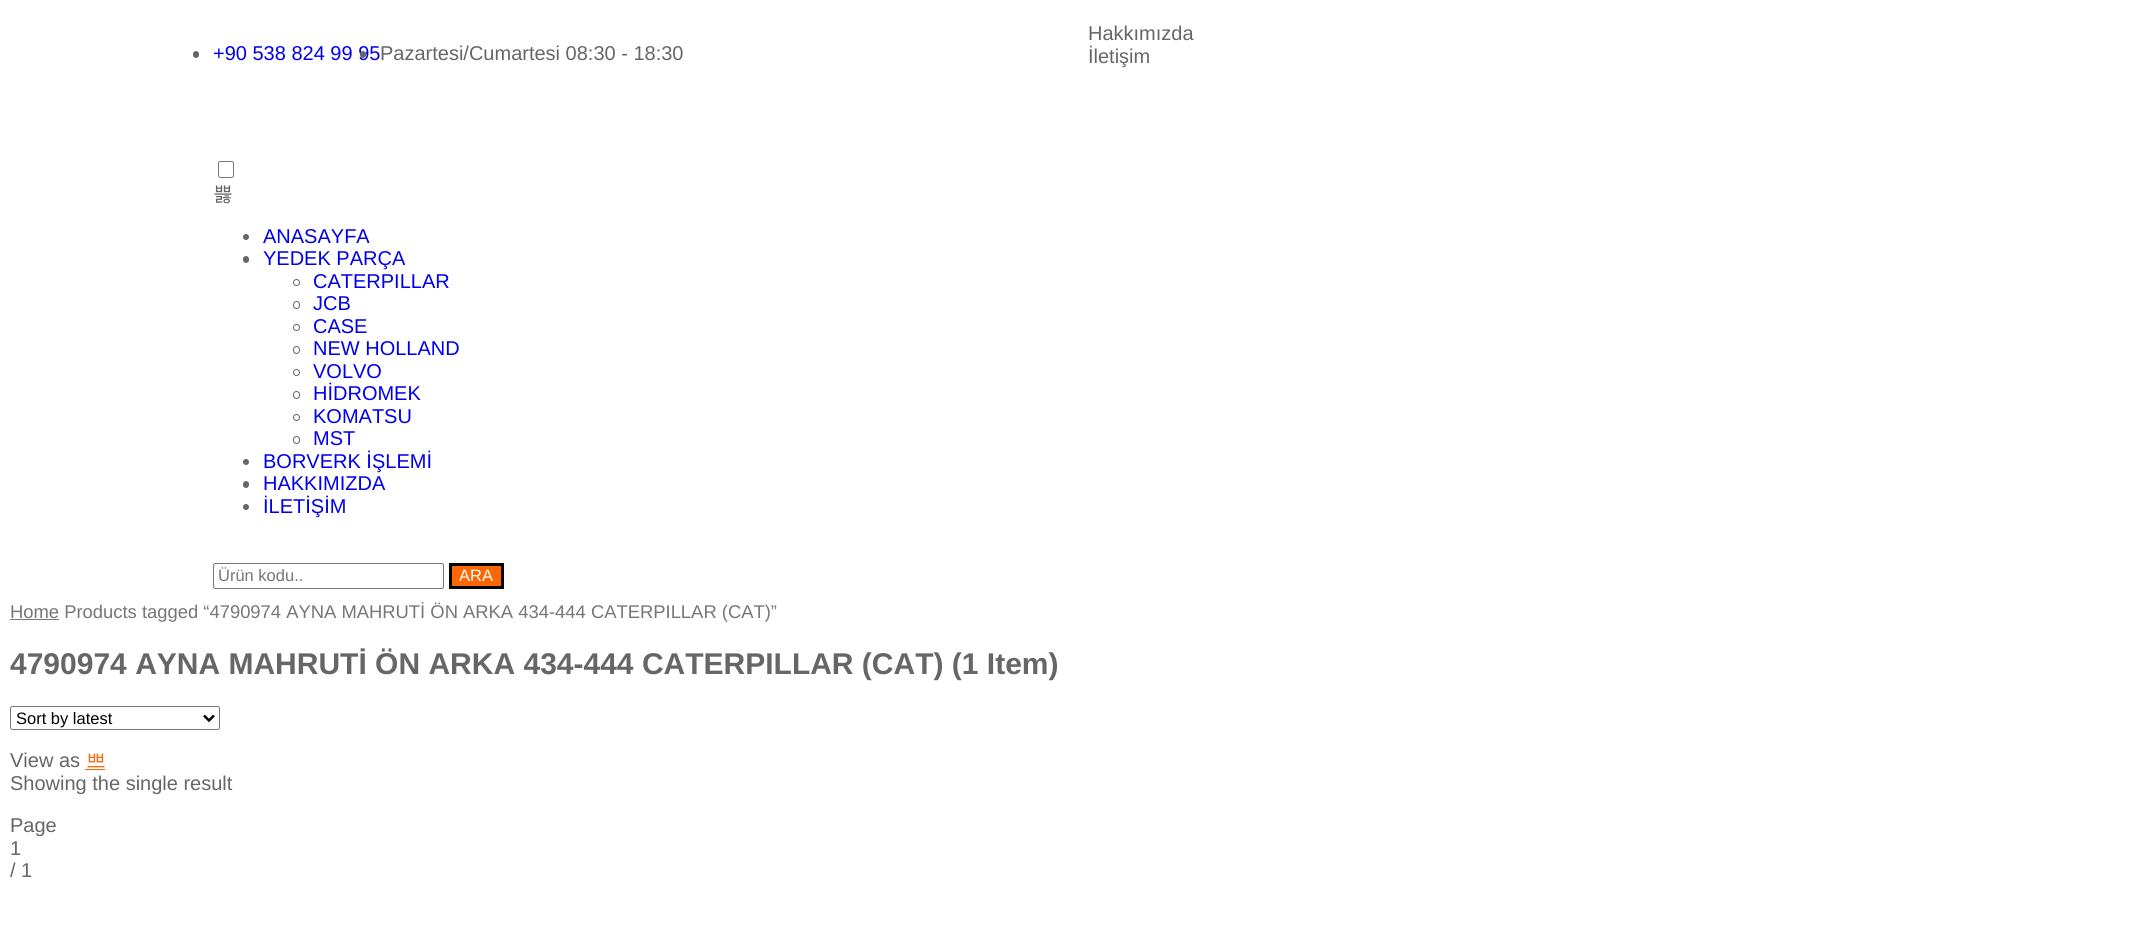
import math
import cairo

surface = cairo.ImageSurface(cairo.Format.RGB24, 2149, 945)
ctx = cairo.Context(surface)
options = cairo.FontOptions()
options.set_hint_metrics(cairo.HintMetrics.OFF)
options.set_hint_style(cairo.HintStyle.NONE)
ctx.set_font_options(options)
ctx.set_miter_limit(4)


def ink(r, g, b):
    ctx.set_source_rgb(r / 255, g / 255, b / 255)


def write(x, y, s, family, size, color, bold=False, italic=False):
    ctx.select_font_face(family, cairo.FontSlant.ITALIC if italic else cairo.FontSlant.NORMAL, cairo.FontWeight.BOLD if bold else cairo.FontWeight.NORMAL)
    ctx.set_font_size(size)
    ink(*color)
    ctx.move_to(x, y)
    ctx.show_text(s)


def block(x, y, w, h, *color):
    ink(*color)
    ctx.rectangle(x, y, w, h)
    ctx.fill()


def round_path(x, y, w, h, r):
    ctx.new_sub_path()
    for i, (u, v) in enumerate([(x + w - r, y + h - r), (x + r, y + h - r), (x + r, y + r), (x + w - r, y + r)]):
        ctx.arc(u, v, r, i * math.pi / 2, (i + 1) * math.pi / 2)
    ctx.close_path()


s1 = dict(family="Liberation Sans", size=20, color=(0, 0, 238))
s2 = dict(family="Liberation Sans", size=20, color=(102, 102, 102))
s3 = dict(family="WenQuanYi Zen Hei Medium", size=20, color=(102, 102, 102))
s4 = dict(family="Liberation Sans", size=16.5, color=(118, 118, 118))
s5 = dict(family="Liberation Sans", size=16.5, color=(255, 255, 255))
s6 = dict(family="Liberation Sans", size=18.4, color=(118, 118, 118))
s7 = dict(family="Liberation Sans", size=30, color=(102, 102, 102), bold=True)
s8 = dict(family="Liberation Sans", size=16.5, color=(0, 0, 0))
s9 = dict(family="WenQuanYi Zen Hei Medium", size=20, color=(252, 103, 2))

ink(255, 255, 255)
ctx.paint()
ink(102, 102, 102)
round_path(193, 51, 6, 7, 3)
ctx.fill()
write(213, 60, "+90 538 824 99 95", **s1)
ink(102, 102, 102)
round_path(360, 51, 6, 7, 3)
ctx.fill()
write(380, 60, "Pazartesi/Cumartesi 08:30 - 18:30", **s2)
write(1088, 40, "Hakkımızda", **s2)
write(1088, 63, "İletişim", **s2)
round_path(218.5, 161.5, 15, 16, 2)
ink(118, 118, 118)
ctx.set_line_width(1)
ctx.stroke()
write(213, 200, "쁧", **s3)
ctx.new_path()
ctx.arc(246, 237, 3, 0, 2 * math.pi)
ctx.fill()
write(263, 243, "ANASAYFA", **s1)
ink(102, 102, 102)
round_path(243, 256, 6, 7, 3)
ctx.fill()
write(263, 265, "YEDEK PARÇA", **s1)
ctx.new_path()
ctx.arc(296.5, 282.5, 3, 0, 2 * math.pi)
ink(102, 102, 102)
ctx.stroke()
write(313, 288, "CATERPILLAR", **s1)
round_path(293.5, 301.5, 6, 7, 3)
ink(102, 102, 102)
ctx.stroke()
write(313, 310, "JCB", **s1)
ctx.new_path()
ctx.arc(296.5, 327.5, 3, 0, 2 * math.pi)
ink(102, 102, 102)
ctx.stroke()
write(313, 333, "CASE", **s1)
round_path(293.5, 346.5, 6, 7, 3)
ink(102, 102, 102)
ctx.stroke()
write(313, 355, "NEW HOLLAND", **s1)
ctx.new_path()
ctx.arc(296.5, 372.5, 3, 0, 2 * math.pi)
ink(102, 102, 102)
ctx.stroke()
write(313, 378, "VOLVO", **s1)
round_path(293.5, 391.5, 6, 7, 3)
ink(102, 102, 102)
ctx.stroke()
write(313, 400, "HİDROMEK", **s1)
ctx.new_path()
ctx.arc(296.5, 417.5, 3, 0, 2 * math.pi)
ink(102, 102, 102)
ctx.stroke()
write(313, 423, "KOMATSU", **s1)
round_path(293.5, 436.5, 6, 7, 3)
ink(102, 102, 102)
ctx.stroke()
write(313, 445, "MST", **s1)
ink(102, 102, 102)
ctx.new_path()
ctx.arc(246, 462, 3, 0, 2 * math.pi)
ctx.fill()
write(263, 468, "BORVERK İŞLEMİ", **s1)
ink(102, 102, 102)
round_path(243, 481, 6, 7, 3)
ctx.fill()
write(263, 490, "HAKKIMIZDA", **s1)
ink(102, 102, 102)
ctx.new_path()
ctx.arc(246, 507, 3, 0, 2 * math.pi)
ctx.fill()
write(263, 513, "İLETİŞİM", **s1)
round_path(213.5, 563.5, 230, 25, 2)
ink(118, 118, 118)
ctx.stroke()
write(218, 581, "Ürün kodu..", **s4)
ink(252, 103, 2)
ctx.rectangle(450.5, 564.5, 52, 23)
ctx.fill_preserve()
ink(0, 0, 0)
ctx.set_line_width(3)
ctx.stroke()
write(459, 581, "ARA", **s5)
block(10, 619, 49, 1, 118, 118, 118)
write(10, 618, "Home Products tagged “4790974 AYNA MAHRUTİ ÖN ARKA 434-444 CATERPILLAR (CAT)”", **s6)
write(10, 674, "4790974 AYNA MAHRUTİ ÖN ARKA 434-444 CATERPILLAR (CAT) (1 Item)", **s7)
round_path(10.5, 706.5, 209, 23, 2)
ink(118, 118, 118)
ctx.set_line_width(1)
ctx.stroke()
ctx.new_path()
ctx.move_to(204, 715.5)
ctx.line_to(209, 720.5)
ctx.line_to(214, 715.5)
ink(0, 0, 0)
ctx.set_line_width(2.5)
ctx.stroke()
write(16, 724, "Sort by latest", **s8)
write(10, 767, "View as", **s2)
write(86, 767, "쁘", **s9)
block(85, 769, 20, 1, 252, 103, 2)
write(10, 790, "Showing the single result", **s2)
write(10, 832, "Page", **s2)
write(10, 855, "1", **s2)
write(10, 877, "/ 1", **s2)
surface.write_to_png("screenshot.png")
